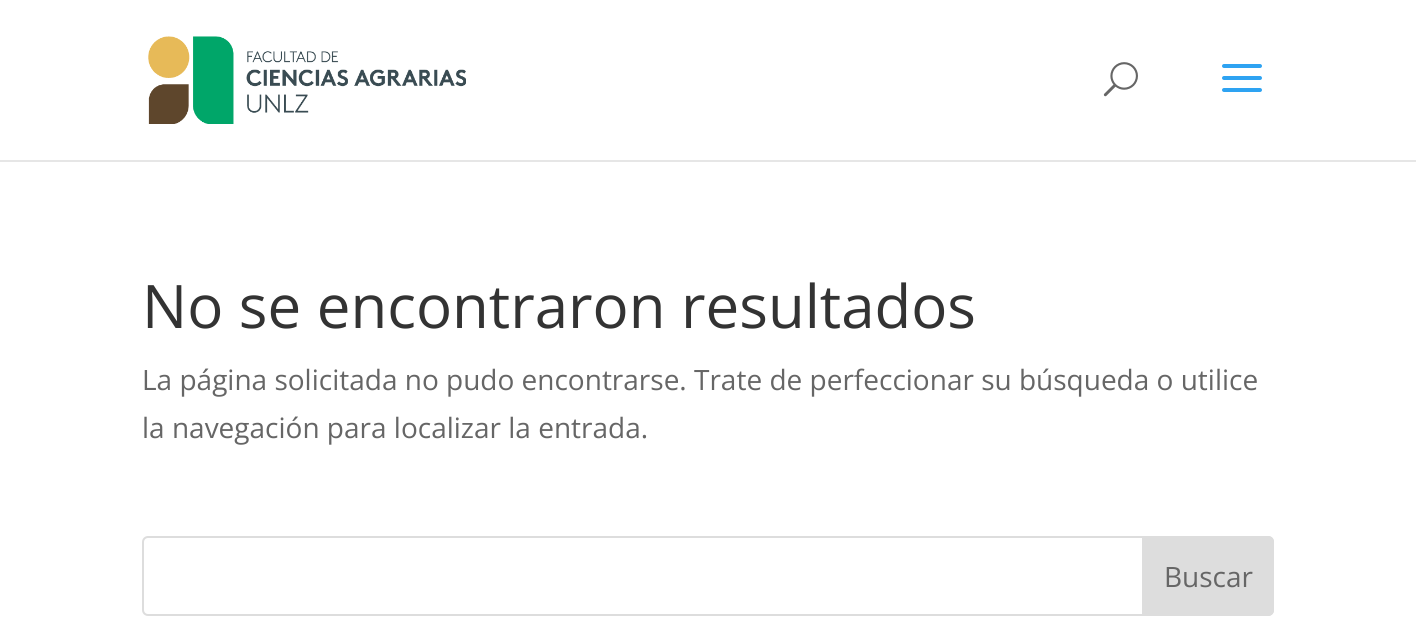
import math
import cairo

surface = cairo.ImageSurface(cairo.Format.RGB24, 1416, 635)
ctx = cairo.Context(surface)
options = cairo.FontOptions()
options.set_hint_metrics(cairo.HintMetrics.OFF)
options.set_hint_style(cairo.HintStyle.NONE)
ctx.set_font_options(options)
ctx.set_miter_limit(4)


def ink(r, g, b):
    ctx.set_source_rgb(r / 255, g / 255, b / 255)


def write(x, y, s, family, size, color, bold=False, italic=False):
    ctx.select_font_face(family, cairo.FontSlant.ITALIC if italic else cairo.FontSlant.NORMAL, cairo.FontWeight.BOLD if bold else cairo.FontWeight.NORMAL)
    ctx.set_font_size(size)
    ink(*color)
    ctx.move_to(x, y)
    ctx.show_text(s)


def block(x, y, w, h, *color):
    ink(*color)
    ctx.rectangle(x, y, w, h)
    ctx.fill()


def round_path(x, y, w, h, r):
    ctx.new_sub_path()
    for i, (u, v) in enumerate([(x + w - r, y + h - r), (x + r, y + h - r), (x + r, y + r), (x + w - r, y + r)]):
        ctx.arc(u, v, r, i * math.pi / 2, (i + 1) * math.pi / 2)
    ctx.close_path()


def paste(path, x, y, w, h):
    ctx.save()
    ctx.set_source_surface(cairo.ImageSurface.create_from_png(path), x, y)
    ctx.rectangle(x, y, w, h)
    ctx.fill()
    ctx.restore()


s1 = dict(family="Open Sans", size=60, color=(51, 51, 51))
s2 = dict(family="Open Sans", size=28, color=(102, 102, 102))

ink(255, 255, 255)
ctx.paint()
block(0, 160, 1416, 2, 230, 230, 230)
paste("pic1.png", 148, 36, 318, 88)
paste("pic2.png", 1103, 62, 35, 35)
paste("pic3.png", 1222, 64, 40, 28)
write(142, 328, "No se encontraron resultados", **s1)
write(142, 390, "La página solicitada no pudo encontrarse. Trate de perfeccionar su búsqueda o utilice", **s2)
write(142, 438, "la navegación para localizar la entrada.", **s2)
round_path(143, 537, 1130, 78, 5)
ink(221, 221, 221)
ctx.stroke()
ctx.new_path()
ctx.move_to(1143, 537)
ctx.line_to(1268, 537)
ctx.curve_to(1271, 537, 1273, 539, 1273, 542)
ctx.line_to(1273, 610)
ctx.curve_to(1273, 613, 1271, 615, 1268, 615)
ctx.line_to(1143, 615)
ctx.close_path()
ctx.fill_preserve()
ctx.stroke()
write(1164, 587, "Buscar", **s2)
surface.write_to_png("screenshot.png")
